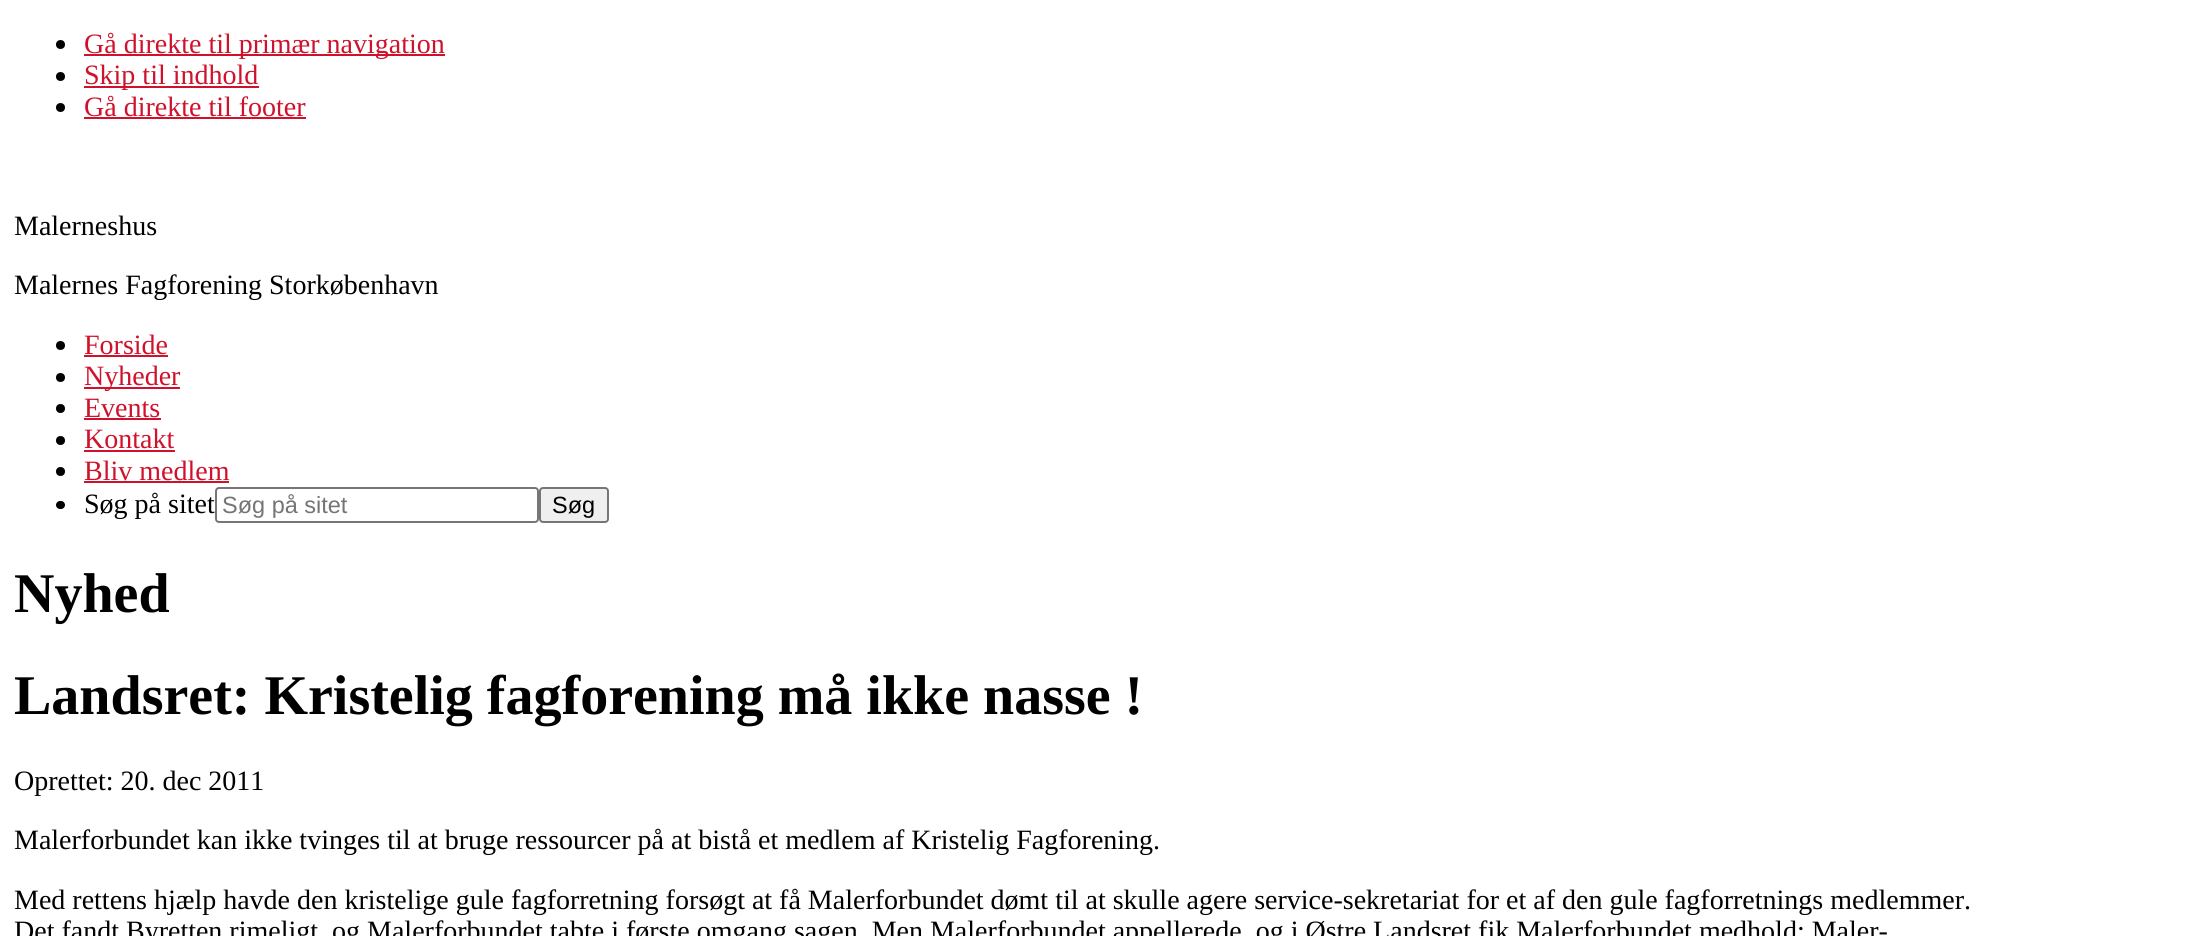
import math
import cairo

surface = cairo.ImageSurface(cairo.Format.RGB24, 2188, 936)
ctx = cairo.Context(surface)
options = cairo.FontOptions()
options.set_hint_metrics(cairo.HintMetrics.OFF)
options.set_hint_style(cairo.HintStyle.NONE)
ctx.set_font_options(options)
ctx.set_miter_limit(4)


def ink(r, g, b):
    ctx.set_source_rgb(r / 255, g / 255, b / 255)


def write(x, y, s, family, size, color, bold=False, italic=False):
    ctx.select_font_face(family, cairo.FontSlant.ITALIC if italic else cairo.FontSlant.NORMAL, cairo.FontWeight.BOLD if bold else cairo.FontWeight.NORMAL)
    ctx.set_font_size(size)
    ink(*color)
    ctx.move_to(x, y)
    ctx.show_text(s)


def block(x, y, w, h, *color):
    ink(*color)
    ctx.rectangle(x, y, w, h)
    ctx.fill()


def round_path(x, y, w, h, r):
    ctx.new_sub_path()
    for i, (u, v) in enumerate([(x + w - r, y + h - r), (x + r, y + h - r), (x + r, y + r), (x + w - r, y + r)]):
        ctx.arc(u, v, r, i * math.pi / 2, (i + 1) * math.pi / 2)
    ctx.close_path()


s1 = dict(family="Liberation Serif", size=28, color=(208, 17, 43))
s2 = dict(family="Liberation Serif", size=28, color=(0, 0, 0))
s3 = dict(family="Liberation Sans", size=23.5, color=(117, 117, 117))
s4 = dict(family="Liberation Sans", size=23.5, color=(0, 0, 0))
s5 = dict(family="Liberation Serif", size=56, color=(0, 0, 0), bold=True)

ink(255, 255, 255)
ctx.paint()
ink(0, 0, 0)
ctx.arc(60.5, 44.5, 4.5, 0, 2 * math.pi)
ctx.fill()
block(84, 54, 361, 2, 208, 17, 43)
write(84, 53, "Gå direkte til primær navigation", **s1)
ink(0, 0, 0)
ctx.new_path()
ctx.arc(60.5, 76.5, 4.5, 0, 2 * math.pi)
ctx.fill()
block(84, 86, 175, 2, 208, 17, 43)
write(84, 84, "Skip til indhold", **s1)
ink(0, 0, 0)
ctx.new_path()
ctx.arc(60.5, 107.5, 4.5, 0, 2 * math.pi)
ctx.fill()
write(84, 116, "Gå direkte til footer", **s1)
block(84, 117, 222, 2, 208, 17, 43)
write(14, 235, "Malerneshus", **s2)
write(14, 294, "Malernes Fagforening Storkøbenhavn", **s2)
ctx.new_path()
ctx.arc(60.5, 345.5, 4.5, 0, 2 * math.pi)
ctx.fill()
write(84, 354, "Forside", **s1)
block(84, 355, 84, 2, 208, 17, 43)
ink(0, 0, 0)
ctx.new_path()
ctx.arc(60.5, 377.5, 4.5, 0, 2 * math.pi)
ctx.fill()
block(84, 387, 96, 2, 208, 17, 43)
write(84, 385, "Nyheder", **s1)
ink(0, 0, 0)
ctx.new_path()
ctx.arc(60.5, 408.5, 4.5, 0, 2 * math.pi)
ctx.fill()
write(84, 417, "Events", **s1)
block(84, 418, 77, 2, 208, 17, 43)
ink(0, 0, 0)
ctx.new_path()
ctx.arc(60.5, 440.5, 4.5, 0, 2 * math.pi)
ctx.fill()
write(84, 448, "Kontakt", **s1)
block(84, 450, 91, 2, 208, 17, 43)
ink(0, 0, 0)
ctx.new_path()
ctx.arc(60.5, 471.5, 4.5, 0, 2 * math.pi)
ctx.fill()
write(84, 480, "Bliv medlem", **s1)
block(84, 481, 145, 2, 208, 17, 43)
ink(0, 0, 0)
round_path(56, 501, 9, 8, 4)
ctx.fill()
write(84, 513, "Søg på sitet", **s2)
round_path(216, 488, 322, 34, 3)
ink(118, 118, 118)
ctx.stroke()
write(222, 513, "Søg på sitet", **s3)
ink(239, 239, 239)
round_path(540, 488, 68, 34, 3)
ctx.fill_preserve()
ink(118, 118, 118)
ctx.stroke()
write(552, 513, "Søg", **s4)
write(14, 612, "Nyhed", **s5)
write(14, 714, "Landsret: Kristelig fagforening må ikke nasse !", **s5)
write(14, 790, "Oprettet: 20. dec 2011", **s2)
write(14, 849, "Malerforbundet kan ikke tvinges til at bruge ressourcer på at bistå et medlem af Kristelig Fagforening.", **s2)
write(14, 909, "Med rettens hjælp havde den kristelige gule fagforretning forsøgt at få Malerforbundet dømt til at skulle agere service-sekretariat for et af den gule fagforretnings medlemmer.", **s2)
write(14, 940, "Det fandt Byretten rimeligt, og Malerforbundet tabte i første omgang sagen. Men Malerforbundet appellerede, og i Østre Landsret fik Malerforbundet medhold: Maler-", **s2)
surface.write_to_png("screenshot.png")
